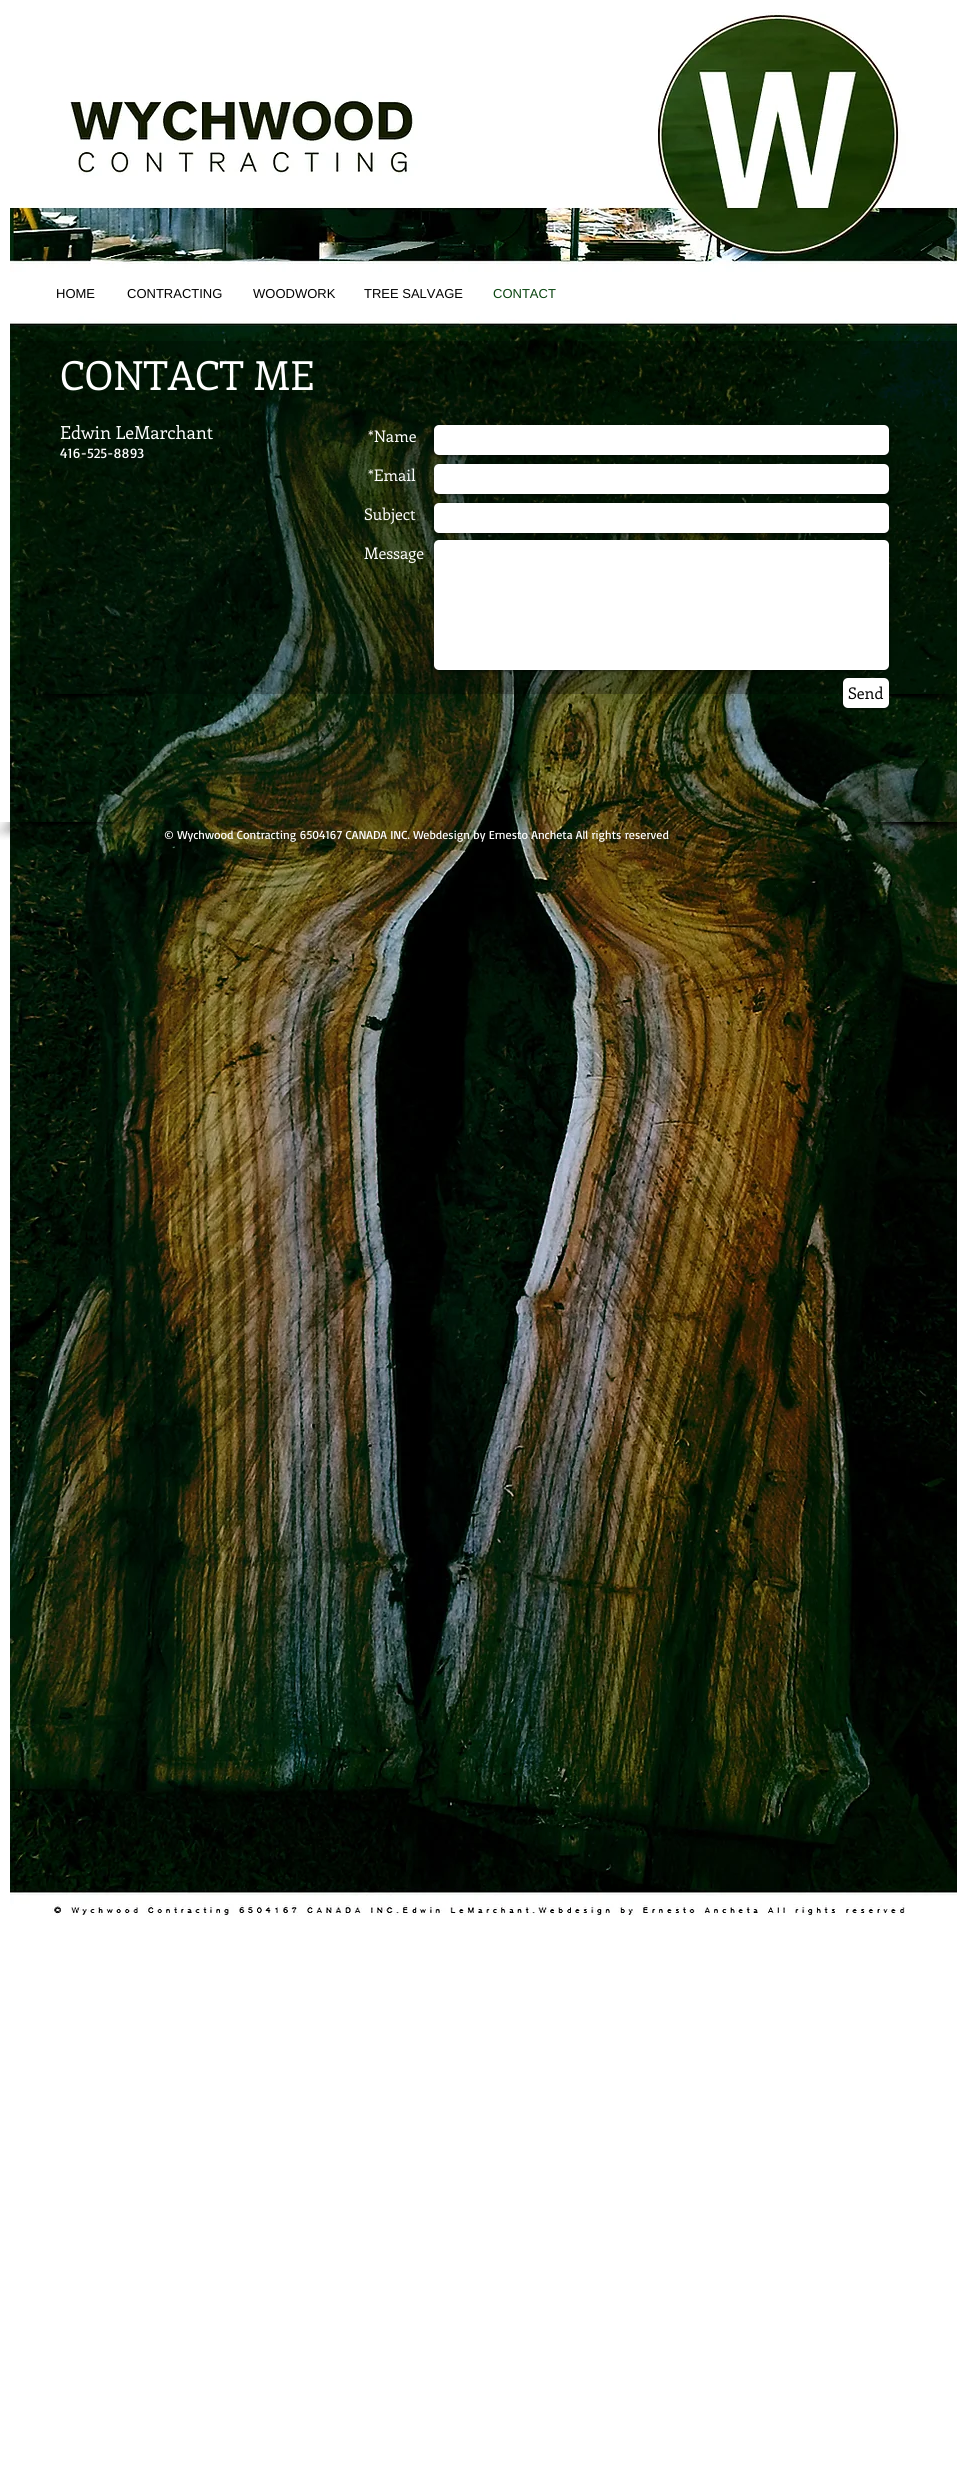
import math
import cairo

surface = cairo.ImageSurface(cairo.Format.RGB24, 957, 2488)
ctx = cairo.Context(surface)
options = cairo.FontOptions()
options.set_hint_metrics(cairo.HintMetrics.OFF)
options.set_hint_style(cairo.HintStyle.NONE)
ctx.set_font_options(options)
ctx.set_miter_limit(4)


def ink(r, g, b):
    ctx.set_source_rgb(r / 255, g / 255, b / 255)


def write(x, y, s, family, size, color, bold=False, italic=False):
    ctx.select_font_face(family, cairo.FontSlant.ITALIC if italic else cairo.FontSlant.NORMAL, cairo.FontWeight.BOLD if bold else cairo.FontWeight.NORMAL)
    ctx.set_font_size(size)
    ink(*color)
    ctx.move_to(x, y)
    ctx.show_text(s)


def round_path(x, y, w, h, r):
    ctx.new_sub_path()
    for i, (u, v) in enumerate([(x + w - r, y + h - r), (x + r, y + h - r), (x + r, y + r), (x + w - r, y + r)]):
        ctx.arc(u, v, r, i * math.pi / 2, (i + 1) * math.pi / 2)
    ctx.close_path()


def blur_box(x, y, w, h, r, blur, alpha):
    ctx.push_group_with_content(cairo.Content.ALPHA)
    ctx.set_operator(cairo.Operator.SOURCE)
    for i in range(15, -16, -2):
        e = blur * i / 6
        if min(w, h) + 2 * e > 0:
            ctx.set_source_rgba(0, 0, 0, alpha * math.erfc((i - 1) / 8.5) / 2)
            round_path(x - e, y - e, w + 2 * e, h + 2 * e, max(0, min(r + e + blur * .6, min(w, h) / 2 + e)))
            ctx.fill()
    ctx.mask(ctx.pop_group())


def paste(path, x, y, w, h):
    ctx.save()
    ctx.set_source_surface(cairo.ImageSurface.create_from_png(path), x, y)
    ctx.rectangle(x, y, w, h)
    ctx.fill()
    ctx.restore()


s1 = dict(family="Liberation Sans", size=13, color=(0, 0, 0))
s2 = dict(family="Liberation Sans", size=13, color=(9, 68, 15))
s3 = dict(family="Enriqueta", size=40, color=(255, 255, 255))
s4 = dict(family="Enriqueta", size=18, color=(255, 255, 255))
s5 = dict(family="Basic", size=14, color=(255, 255, 255))
s6 = dict(family="Enriqueta", size=16, color=(255, 255, 255))
s7 = dict(family="Enriqueta", size=16, color=(0, 0, 0))
s8 = dict(family="Basic", size=12, color=(255, 255, 255))

ink(255, 255, 255)
ctx.paint()
paste("pic1.png", 10, 12, 947, 1904)
write(56, 298, "HOME", **s1)
write(127, 298, "CONTRACTING", **s1)
write(253, 298, "WOODWORK", **s1)
write(364, 298, "TREE SALVAGE", **s1)
write(493, 298, "CONTACT", **s2)
ctx.set_source_rgba(0, 0, 0, 0.28)
ctx.rectangle(20, 341, 937, 353)
ctx.fill()
write(60, 390, "CONTACT ME", **s3)
write(60, 439, "Edwin LeMarchant", **s4)
write(60, 458, "416-525-8893", **s5)
paste("pic2.png", 26, 694, 100, 11)
write(368, 442, "*Name", **s6)
ink(0, 0, 0)
blur_box(434, 426, 455, 30, 5, 2, 0.6)
ink(255, 255, 255)
round_path(434, 425, 455, 30, 5)
ctx.fill()
write(368, 481, "*Email", **s6)
ink(0, 0, 0)
blur_box(434, 465, 455, 30, 5, 2, 0.6)
ink(255, 255, 255)
round_path(434, 464, 455, 30, 5)
ctx.fill()
write(364, 520, "Subject", **s6)
ink(0, 0, 0)
blur_box(434, 504, 455, 30, 5, 2, 0.6)
ink(255, 255, 255)
round_path(434, 503, 455, 30, 5)
ctx.fill()
write(364, 559, "Message", **s6)
ink(0, 0, 0)
blur_box(434, 541, 455, 130, 5, 2, 0.6)
ink(255, 255, 255)
round_path(434, 540, 455, 130, 5)
ctx.fill()
paste("pic3.png", 889, 694, 68, 12)
ink(0, 0, 0)
blur_box(843, 679, 46, 30, 5, 2, 0.6)
ink(255, 255, 255)
round_path(843, 678, 46, 30, 5)
ctx.fill()
write(848, 699, "Send", **s7)
paste("pic4.png", 0, 822, 122, 18)
paste("pic5.png", 838, 822, 119, 11)
write(164, 839, "© Wychwood Contracting 6504167 CANADA INC. Webdesign by Ernesto Ancheta All rights reserved", **s8)
surface.write_to_png("screenshot.png")
